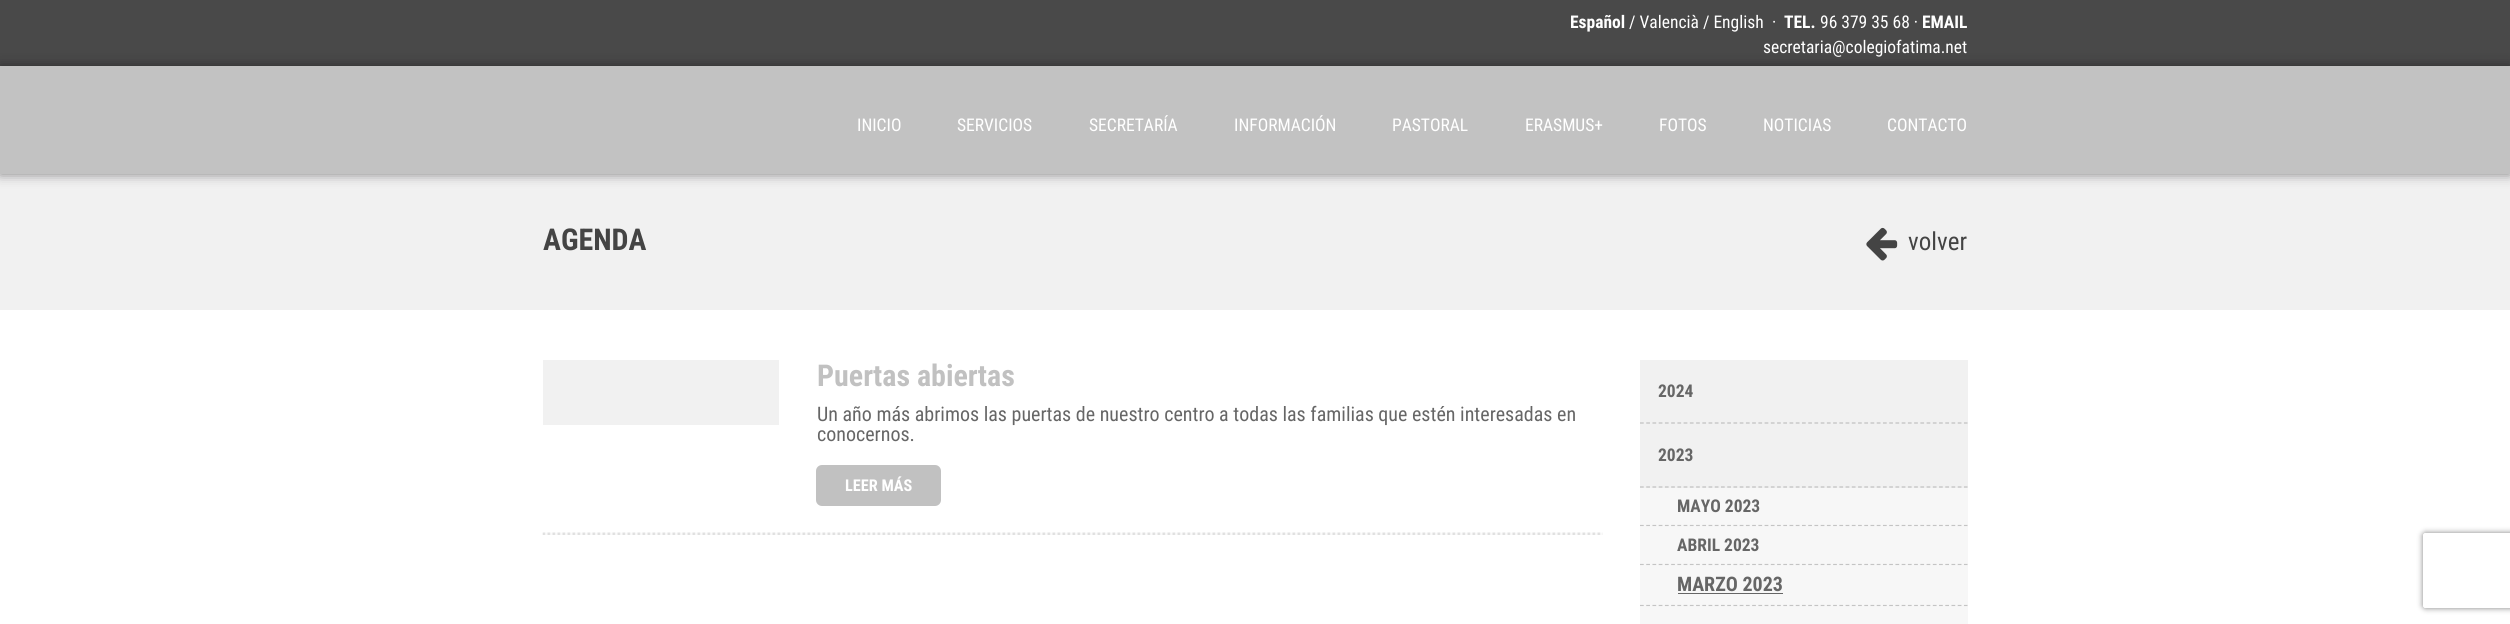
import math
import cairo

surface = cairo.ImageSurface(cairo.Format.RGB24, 2510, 624)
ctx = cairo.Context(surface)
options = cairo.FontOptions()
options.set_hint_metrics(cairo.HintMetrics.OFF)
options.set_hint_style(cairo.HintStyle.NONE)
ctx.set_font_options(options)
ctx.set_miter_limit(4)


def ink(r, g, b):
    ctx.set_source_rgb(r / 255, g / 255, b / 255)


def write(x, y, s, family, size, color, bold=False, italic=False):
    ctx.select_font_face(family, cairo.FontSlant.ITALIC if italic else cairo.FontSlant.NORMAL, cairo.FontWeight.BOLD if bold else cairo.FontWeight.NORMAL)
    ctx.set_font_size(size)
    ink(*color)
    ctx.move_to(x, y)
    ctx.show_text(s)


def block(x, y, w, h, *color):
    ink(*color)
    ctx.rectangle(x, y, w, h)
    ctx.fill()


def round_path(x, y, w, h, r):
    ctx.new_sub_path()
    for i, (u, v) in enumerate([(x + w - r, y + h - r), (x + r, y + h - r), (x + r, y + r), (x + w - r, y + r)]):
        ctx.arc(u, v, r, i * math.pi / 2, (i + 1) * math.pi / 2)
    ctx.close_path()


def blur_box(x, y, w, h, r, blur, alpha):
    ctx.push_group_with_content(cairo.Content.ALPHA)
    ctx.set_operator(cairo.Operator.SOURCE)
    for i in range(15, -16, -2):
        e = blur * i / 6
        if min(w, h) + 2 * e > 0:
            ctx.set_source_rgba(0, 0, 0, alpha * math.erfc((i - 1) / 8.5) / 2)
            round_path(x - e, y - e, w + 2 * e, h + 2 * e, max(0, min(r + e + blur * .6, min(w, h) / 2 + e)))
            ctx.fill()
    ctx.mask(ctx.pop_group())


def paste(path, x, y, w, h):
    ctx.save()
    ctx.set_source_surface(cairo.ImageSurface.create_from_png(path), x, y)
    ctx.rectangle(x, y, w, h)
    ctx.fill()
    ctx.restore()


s1 = dict(family="Roboto Condensed", size=17.5, color=(255, 255, 255), bold=True)
s2 = dict(family="Roboto Condensed", size=17.5, color=(255, 255, 255))
s3 = dict(family="Roboto Condensed", size=30, color=(68, 68, 68), bold=True)
s4 = dict(family="Roboto Condensed", size=25, color=(68, 68, 68))
s5 = dict(family="Roboto Condensed", size=30, color=(193, 193, 193), bold=True)
s6 = dict(family="Roboto Condensed", size=20, color=(102, 102, 102))
s7 = dict(family="Roboto Condensed", size=16.25, color=(255, 255, 255), bold=True)
s8 = dict(family="Roboto Condensed", size=17.5, color=(102, 102, 102), bold=True)
s9 = dict(family="Roboto Condensed", size=20, color=(102, 102, 102), bold=True)

ink(255, 255, 255)
ctx.paint()
block(0, 0, 2510, 66, 73, 73, 73)
write(1570, 28, "Español", **s1)
write(1629, 28, "/ Valencià / English", **s2)
write(1772, 28, "·", **s2)
write(1784, 28, "TEL.", **s1)
write(1820, 28, "96 379 35 68 ·", **s2)
write(1922, 28, "EMAIL", **s1)
write(1763, 53, "secretaria@colegiofatima.net", **s2)
block(0, 174, 2510, 136, 241, 241, 241)
ink(19, 18, 21)
blur_box(0, 66, 2510, 108, 0, 6, 0.52)
block(0, 66, 2510, 108, 194, 194, 194)
write(857, 131, "INICIO", **s2)
write(957, 131, "SERVICIOS", **s2)
write(1089, 131, "SECRETARÍA", **s2)
write(1234, 131, "INFORMACIÓN", **s2)
write(1392, 131, "PASTORAL", **s2)
write(1525, 131, "ERASMUS+", **s2)
write(1659, 131, "FOTOS", **s2)
write(1763, 131, "NOTICIAS", **s2)
write(1887, 131, "CONTACTO", **s2)
write(543, 250, "AGENDA", **s3)
paste("pic1.png", 1866, 227, 32, 34)
write(1908, 250, "volver", **s4)
block(543, 360, 236, 65, 241, 241, 241)
write(817, 386, "Puertas abiertas", **s5)
write(817, 421, "Un año más abrimos las puertas de nuestro centro a todas las familias que estén interesadas en", **s6)
write(817, 441, "conocernos.", **s6)
ink(193, 193, 193)
round_path(816, 465, 125, 41, 6)
ctx.fill()
write(845, 491, "LEER MÁS", **s7)
paste("pic2.png", 542, 532, 1061, 3)
block(1640, 360, 328, 264, 241, 241, 241)
ctx.new_path()
ctx.move_to(1640, 423)
ctx.line_to(1967.5, 423)
ink(192, 192, 192)
ctx.set_line_width(1.2)
ctx.set_dash([3.75, 2.48])
ctx.stroke()
write(1658, 397, "2024", **s8)
ctx.new_path()
ctx.move_to(1640, 487)
ctx.line_to(1967.5, 487)
ink(192, 192, 192)
ctx.stroke()
write(1658, 461, "2023", **s8)
block(1640, 488, 328, 38, 247, 247, 247)
ctx.new_path()
ctx.move_to(1640, 525.5)
ctx.line_to(1967.5, 525.5)
ink(196, 196, 196)
ctx.stroke()
write(1677, 512, "MAYO 2023", **s8)
ctx.set_source_rgba(1, 1, 1, 0.4)
ctx.rectangle(1640, 526, 328, 39)
ctx.fill()
ctx.new_path()
ctx.move_to(1640, 564.5)
ctx.line_to(1967.5, 564.5)
ink(196, 196, 196)
ctx.stroke()
write(1677, 551, "ABRIL 2023", **s8)
ctx.set_source_rgba(1, 1, 1, 0.4)
ctx.rectangle(1640, 565, 328, 41)
ctx.fill()
ctx.new_path()
ctx.move_to(1640, 605.5)
ctx.line_to(1967.5, 605.5)
ink(196, 196, 196)
ctx.stroke()
write(1677, 591, "MARZO 2023", **s9)
block(1678, 593, 105, 1, 102, 102, 102)
ctx.set_source_rgba(1, 1, 1, 0.4)
ctx.rectangle(1640, 606, 328, 18)
ctx.fill()
ctx.save()
ctx.set_fill_rule(cairo.FillRule.EVEN_ODD)
ctx.new_path()
ctx.move_to(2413, 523)
ctx.line_to(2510, 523)
ctx.line_to(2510, 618)
ctx.line_to(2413, 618)
ctx.close_path()
ctx.move_to(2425.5, 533)
ctx.line_to(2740.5, 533)
ctx.curve_to(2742, 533, 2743, 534, 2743, 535.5)
ctx.line_to(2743, 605.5)
ctx.curve_to(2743, 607, 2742, 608, 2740.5, 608)
ctx.line_to(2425.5, 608)
ctx.curve_to(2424, 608, 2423, 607, 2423, 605.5)
ctx.line_to(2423, 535.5)
ctx.curve_to(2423, 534, 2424, 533, 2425.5, 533)
ctx.close_path()
ctx.clip()
ink(128, 128, 128)
blur_box(2423, 533, 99, 75, 2.5, 3, 1)
ctx.restore()
surface.write_to_png("screenshot.png")
